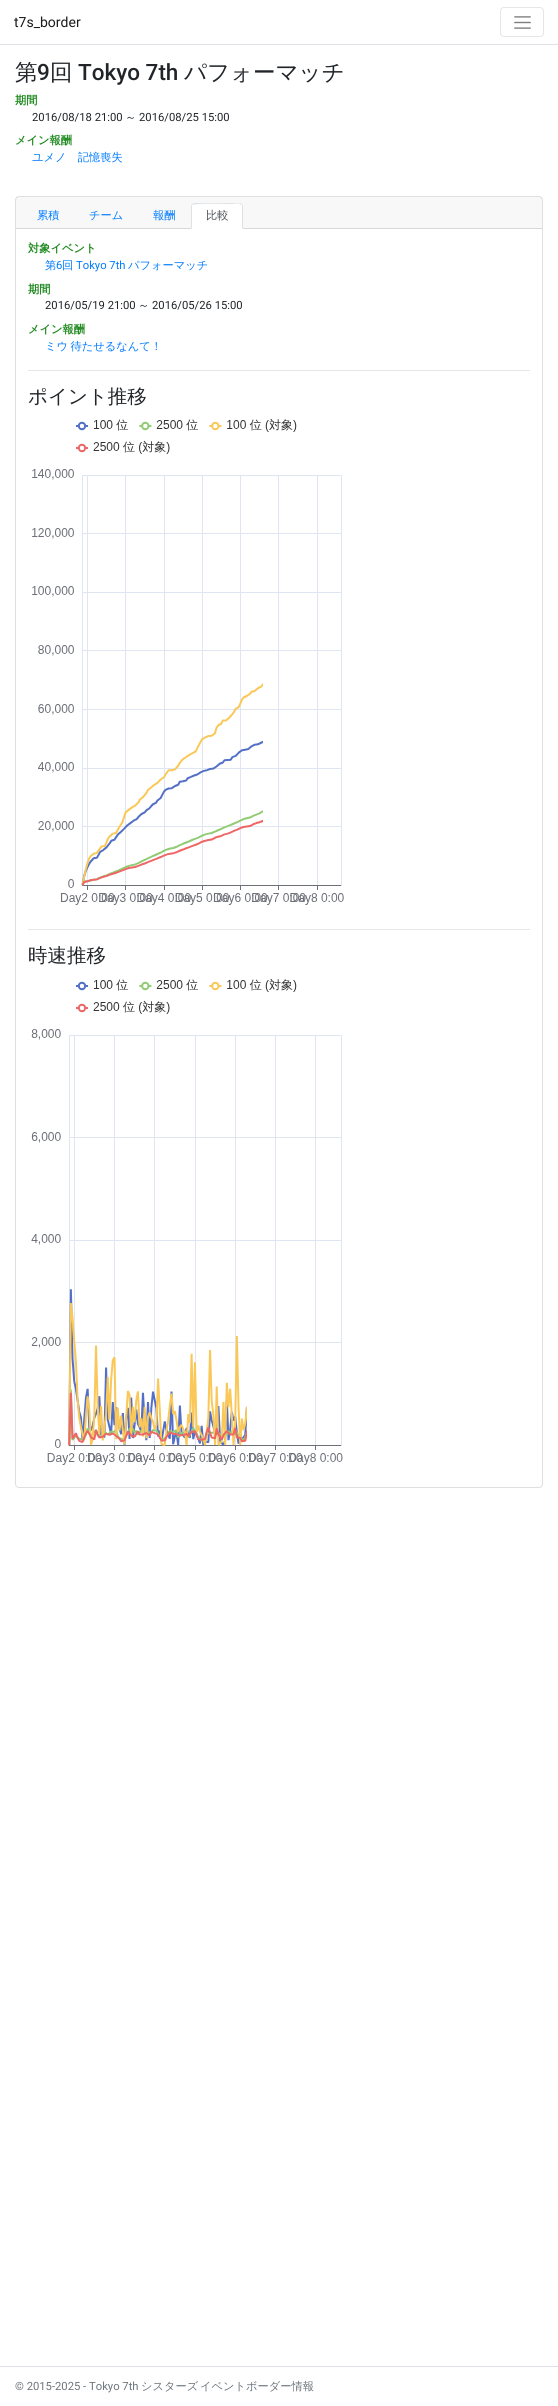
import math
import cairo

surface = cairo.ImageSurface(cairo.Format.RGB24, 558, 2406)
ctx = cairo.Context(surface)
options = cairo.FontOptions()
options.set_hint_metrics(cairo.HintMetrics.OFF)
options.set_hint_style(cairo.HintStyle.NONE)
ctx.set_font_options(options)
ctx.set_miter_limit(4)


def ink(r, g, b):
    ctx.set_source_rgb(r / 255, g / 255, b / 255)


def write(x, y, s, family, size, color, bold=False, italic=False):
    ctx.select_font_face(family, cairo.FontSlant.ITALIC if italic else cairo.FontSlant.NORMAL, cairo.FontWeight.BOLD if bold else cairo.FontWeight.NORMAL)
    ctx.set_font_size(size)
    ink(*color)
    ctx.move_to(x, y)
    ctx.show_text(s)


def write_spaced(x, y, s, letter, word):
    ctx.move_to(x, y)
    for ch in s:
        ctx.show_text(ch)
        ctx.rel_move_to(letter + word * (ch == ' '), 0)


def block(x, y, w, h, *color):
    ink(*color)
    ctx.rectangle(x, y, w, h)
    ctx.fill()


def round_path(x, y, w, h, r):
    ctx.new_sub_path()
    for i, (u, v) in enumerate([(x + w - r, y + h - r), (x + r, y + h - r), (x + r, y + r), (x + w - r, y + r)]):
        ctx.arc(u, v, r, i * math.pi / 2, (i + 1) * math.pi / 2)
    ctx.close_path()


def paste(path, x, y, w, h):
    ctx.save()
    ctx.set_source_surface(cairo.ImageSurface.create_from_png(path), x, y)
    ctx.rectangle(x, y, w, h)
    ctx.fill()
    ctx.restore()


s1 = dict(family="Roboto", size=14, color=(26, 26, 26))
s2 = dict(family="WenQuanYi Zen Hei Medium", size=22.5, color=(33, 37, 41))
s3 = dict(family="Roboto Medium", size=22.5, color=(33, 37, 41))
s4 = dict(family="WenQuanYi Zen Hei", size=11.25, color=(34, 139, 34), bold=True)
s5 = dict(family="Roboto", size=11.25, color=(33, 37, 41))
s6 = dict(family="WenQuanYi Zen Hei Medium", size=11.25, color=(33, 37, 41))
s7 = dict(family="WenQuanYi Zen Hei Medium", size=11.25, color=(0, 123, 255))
s8 = dict(family="WenQuanYi Zen Hei Medium", size=11.25, color=(73, 80, 87))
s9 = dict(family="Roboto", size=11.25, color=(0, 123, 255))
s10 = dict(family="WenQuanYi Zen Hei Medium", size=19.5, color=(33, 37, 41))
s11 = dict(family="Roboto", size=11.25, color=(108, 117, 125))
s12 = dict(family="WenQuanYi Zen Hei Medium", size=11.25, color=(108, 117, 125))

ink(255, 255, 255)
ctx.paint()
block(0, 44, 558, 1, 222, 226, 230)
write(14, 27, "t7s_border", **s1)
round_path(500.5, 7.5, 43, 29, 3.5)
ink(230, 230, 230)
ctx.set_line_width(1)
ctx.stroke()
paste("pic1.png", 514, 16, 17, 13)
write(15, 80, "第", **s2)
write(37, 80, "9", **s3)
write(50, 80, "回", **s2)
write(78, 80, "Tokyo 7th", **s3)
write(184, 80, "パフォーマッチ", **s2)
write(15, 104, "期間", **s4)
write(32, 121, "2016/08/18 21:00", **s5)
write(125, 121, "～", **s6)
write(139, 121, "2016/08/25 15:00", **s5)
write(15, 144, "メイン報酬", **s4)
write(32, 161, "ユメノ　記憶喪失", **s7)
round_path(15.5, 196.5, 527, 1291, 3.5)
ink(223, 223, 223)
ctx.stroke()
ctx.set_source_rgba(0, 0, 0, 0.03)
ctx.rectangle(16, 197, 526, 31)
ctx.fill()
block(16, 228, 526, 1, 216, 216, 216)
write(37, 219, "累積", **s7)
write(89, 219, "チーム", **s7)
write(153, 219, "報酬", **s7)
ink(255, 255, 255)
ctx.new_path()
ctx.move_to(195, 203)
ctx.line_to(239, 203)
ctx.curve_to(241, 203, 243, 205, 243, 207)
ctx.line_to(243, 229)
ctx.line_to(191, 229)
ctx.line_to(191, 207)
ctx.curve_to(191, 205, 193, 203, 195, 203)
ctx.close_path()
ctx.fill()
ink(222, 226, 230)
ctx.new_path()
ctx.move_to(194, 203)
ctx.line_to(192, 204)
ctx.line_to(193, 205)
ctx.curve_to(194, 203, 228, 204, 232, 204)
ctx.curve_to(235, 204, 239, 202, 241, 205)
ctx.line_to(242, 204)
ctx.line_to(240, 203)
ctx.close_path()
ctx.fill()
ctx.new_path()
ctx.move_to(243, 229)
ctx.line_to(243, 206)
ctx.curve_to(243, 205.5, 242.5, 205, 242, 204)
ctx.line_to(241.5, 204.5)
ctx.curve_to(242, 205, 242, 205.5, 242, 206)
ctx.line_to(242, 228)
ctx.close_path()
ctx.fill()
ink(255, 255, 255)
ctx.new_path()
ctx.move_to(243, 229)
ctx.line_to(242, 228)
ctx.line_to(192, 228)
ctx.line_to(191, 229)
ctx.close_path()
ctx.fill()
ink(222, 226, 230)
ctx.new_path()
ctx.move_to(191, 229)
ctx.line_to(192, 228)
ctx.line_to(192, 206)
ctx.curve_to(192, 205.5, 192, 205, 192.5, 204.5)
ctx.line_to(192, 204)
ctx.line_to(191, 206)
ctx.close_path()
ctx.fill()
write(206, 219, "比較", **s8)
write(28, 252, "対象イベント", **s4)
write(45, 269, "第", **s7)
write(56, 269, "6", **s9)
write(62, 269, "回", **s7)
write(76, 269, "Tokyo 7th", **s9)
write(128, 269, "パフォーマッチ", **s7)
write(28, 293, "期間", **s4)
write(45, 309, "2016/05/19 21:00", **s5)
write(138, 309, "～", **s6)
write(152, 309, "2016/05/26 15:00", **s5)
write(28, 333, "メイン報酬", **s4)
ctx.select_font_face("WenQuanYi Zen Hei Medium")
ink(0, 123, 255)
write_spaced(45, 350, "ミウ 待たせるなんて！", 0, -1)
block(28, 370, 502, 1, 230, 230, 230)
write(28, 403, "ポイント推移", **s10)
paste("pic2.png", 32, 418, 312, 487)
block(28, 929, 502, 1, 230, 230, 230)
write(28, 962, "時速推移", **s10)
paste("pic3.png", 31, 978, 312, 487)
block(0, 2366, 558, 1, 222, 226, 230)
write(15, 2390, "© 2015-2025 - Tokyo 7th", **s11)
write(141, 2390, "シスターズ", **s12)
write(200, 2390, "イベントボーダー情報", **s12)
surface.write_to_png("screenshot.png")
